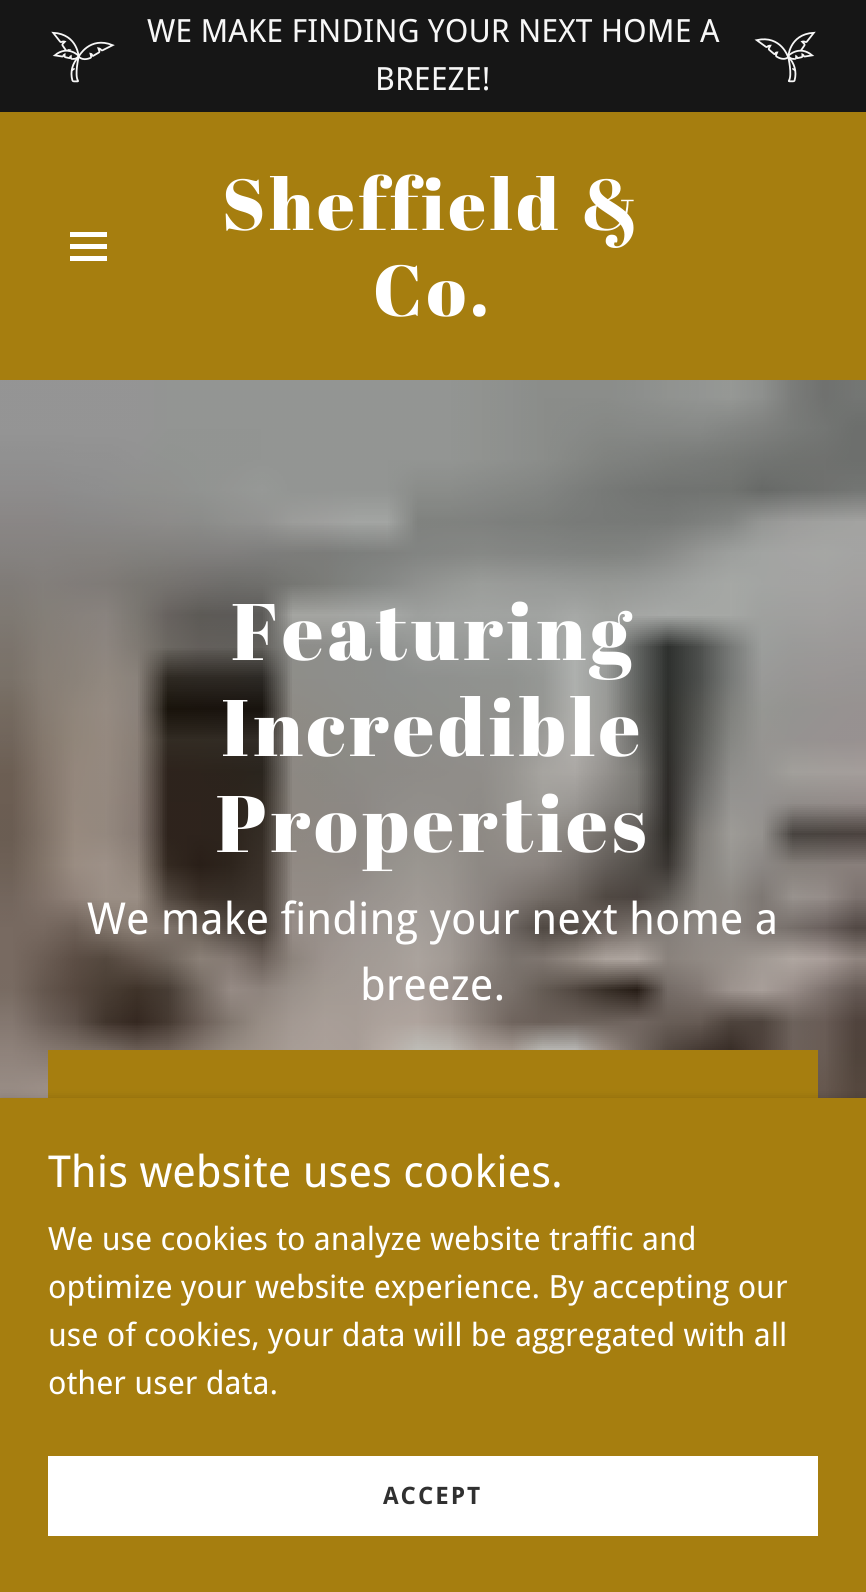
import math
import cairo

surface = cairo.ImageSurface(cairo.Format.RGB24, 866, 1592)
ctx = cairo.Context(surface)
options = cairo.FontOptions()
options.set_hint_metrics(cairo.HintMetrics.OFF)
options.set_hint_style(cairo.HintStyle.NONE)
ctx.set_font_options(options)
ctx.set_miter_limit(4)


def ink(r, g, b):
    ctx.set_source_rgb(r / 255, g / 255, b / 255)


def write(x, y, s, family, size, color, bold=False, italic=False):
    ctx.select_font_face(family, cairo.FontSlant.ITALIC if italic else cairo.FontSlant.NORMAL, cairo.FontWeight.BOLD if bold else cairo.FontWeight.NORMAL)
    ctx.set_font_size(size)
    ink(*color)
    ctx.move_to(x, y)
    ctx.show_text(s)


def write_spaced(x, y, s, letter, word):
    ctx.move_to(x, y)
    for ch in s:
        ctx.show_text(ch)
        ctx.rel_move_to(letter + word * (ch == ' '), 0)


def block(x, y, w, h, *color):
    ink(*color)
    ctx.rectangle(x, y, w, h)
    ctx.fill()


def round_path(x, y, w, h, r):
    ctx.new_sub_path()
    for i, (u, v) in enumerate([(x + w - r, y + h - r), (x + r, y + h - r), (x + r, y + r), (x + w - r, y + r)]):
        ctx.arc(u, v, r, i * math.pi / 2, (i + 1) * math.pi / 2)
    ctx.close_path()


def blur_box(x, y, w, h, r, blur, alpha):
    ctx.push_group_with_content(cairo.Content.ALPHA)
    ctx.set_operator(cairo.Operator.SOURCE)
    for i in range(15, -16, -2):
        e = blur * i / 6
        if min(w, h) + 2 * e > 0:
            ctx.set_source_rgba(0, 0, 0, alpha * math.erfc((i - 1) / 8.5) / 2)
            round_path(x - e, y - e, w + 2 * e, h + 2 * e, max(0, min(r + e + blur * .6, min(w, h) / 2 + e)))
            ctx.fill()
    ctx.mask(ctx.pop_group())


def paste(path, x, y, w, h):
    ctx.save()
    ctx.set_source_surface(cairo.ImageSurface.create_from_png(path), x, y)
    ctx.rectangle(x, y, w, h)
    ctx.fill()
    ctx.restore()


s1 = dict(family="Droid Sans", size=32, color=(247, 247, 247))
s2 = dict(family="Droid Sans", size=44, color=(255, 255, 255))
s3 = dict(family="Droid Sans", size=32, color=(255, 255, 255))

ink(166, 126, 15)
ctx.paint()
block(0, 0, 866, 112, 22, 22, 22)
paste("pic1.png", 51, 31, 64, 52)
write(147, 42, "WE MAKE FINDING YOUR NEXT HOME A", **s1)
write(375, 90, "BREEZE!", **s1)
paste("pic2.png", 754, 31, 62, 52)
block(70, 232, 37, 5, 255, 255, 255)
block(70, 244, 37, 5, 255, 255, 255)
block(70, 256, 37, 5, 255, 255, 255)
ctx.select_font_face("Abril Fatface")
ctx.set_font_size(72)
write_spaced(222, 230, "Sheffield &", 4, 0)
write_spaced(373, 316, "Co.", 4, 0)
paste("pic3.png", 0, 380, 866, 718)
ctx.set_font_size(80)
write_spaced(231, 660, "Featuring", 4, 0)
write_spaced(221, 756, "Incredible", 4, 0)
write_spaced(216, 852, "Properties", 4, 0)
write(87, 934, "We make finding your next home a", **s2)
write(360, 1000, "breeze.", **s2)
block(48, 1050, 770, 48, 166, 126, 15)
ink(0, 0, 0)
blur_box(0, 1102, 866, 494, 0, 6, 0.3)
block(0, 1098, 866, 494, 166, 126, 15)
write(48, 1187, "This website uses cookies.", **s2)
write(48, 1250, "We use cookies to analyze website traffic and", **s3)
write(48, 1298, "optimize your website experience. By accepting our", **s3)
write(48, 1346, "use of cookies, your data will be aggregated with all", **s3)
write(48, 1394, "other user data.", **s3)
block(48, 1456, 770, 80, 255, 255, 255)
ctx.select_font_face("Droid Sans", cairo.FontSlant.NORMAL, cairo.FontWeight.BOLD)
ctx.set_font_size(24)
ink(48, 48, 48)
write_spaced(383, 1504, "ACCEPT", 2, 0)
surface.write_to_png("screenshot.png")
